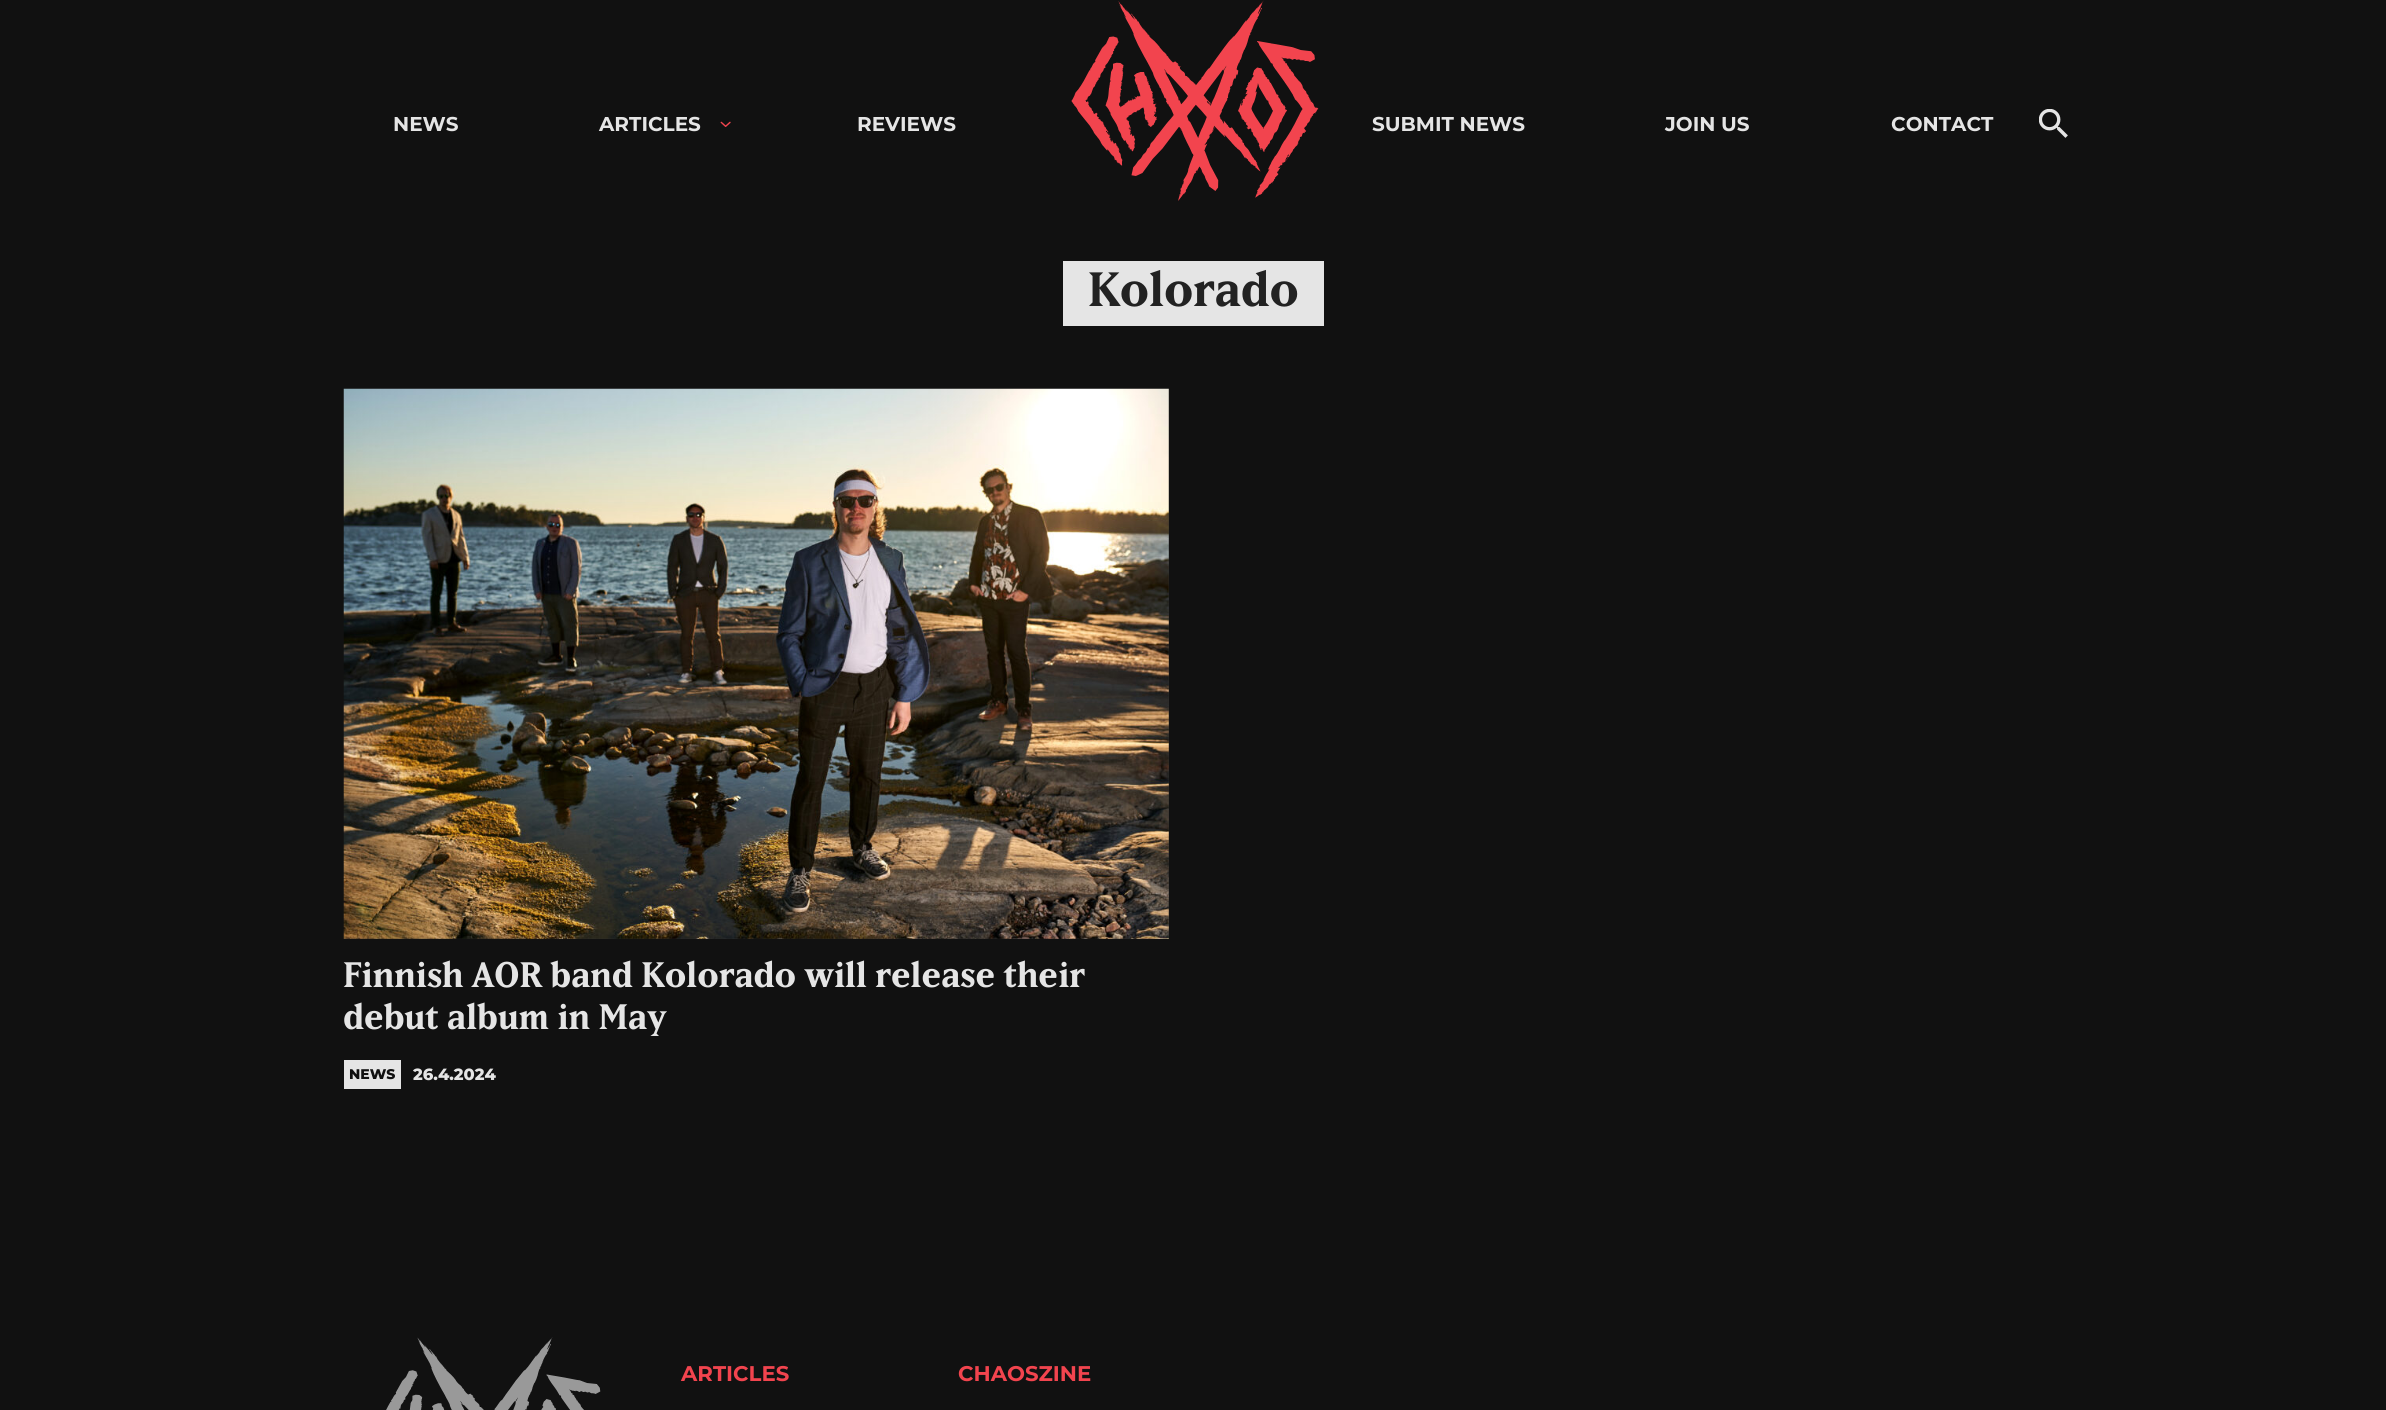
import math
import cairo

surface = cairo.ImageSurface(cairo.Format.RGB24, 2386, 1410)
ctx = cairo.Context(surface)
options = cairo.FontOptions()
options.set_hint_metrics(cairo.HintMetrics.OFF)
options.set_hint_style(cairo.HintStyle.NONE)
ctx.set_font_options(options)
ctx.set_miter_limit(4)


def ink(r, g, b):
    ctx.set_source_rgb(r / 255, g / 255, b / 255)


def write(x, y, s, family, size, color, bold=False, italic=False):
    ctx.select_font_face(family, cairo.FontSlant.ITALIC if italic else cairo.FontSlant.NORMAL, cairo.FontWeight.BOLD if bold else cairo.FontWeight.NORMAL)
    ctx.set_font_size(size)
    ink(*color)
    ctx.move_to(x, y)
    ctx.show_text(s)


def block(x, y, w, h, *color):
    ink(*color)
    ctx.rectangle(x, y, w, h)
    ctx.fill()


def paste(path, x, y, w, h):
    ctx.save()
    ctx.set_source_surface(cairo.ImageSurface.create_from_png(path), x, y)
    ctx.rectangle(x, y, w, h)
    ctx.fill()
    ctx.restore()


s1 = dict(family="Montserrat", size=20, color=(229, 229, 229), bold=True)
s2 = dict(family="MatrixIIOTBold", size=47.5, color=(34, 34, 34), bold=True)
s3 = dict(family="MatrixIIOTBold", size=34.9, color=(229, 229, 229), bold=True)
s4 = dict(family="Montserrat ExtraBold", size=14, color=(17, 17, 17))
s5 = dict(family="Montserrat ExtraBold", size=16.25, color=(229, 229, 229))
s6 = dict(family="Montserrat", size=21.25, color=(242, 68, 78), bold=True)

ink(17, 17, 17)
ctx.paint()
paste("pic1.png", 1071, 0, 248, 201)
write(393, 131, "NEWS", **s1)
write(599, 131, "ARTICLES", **s1)
paste("pic2.png", 720, 121, 11, 6)
write(857, 131, "REVIEWS", **s1)
write(1372, 131, "SUBMIT NEWS", **s1)
write(1665, 131, "JOIN US", **s1)
write(1891, 131, "CONTACT", **s1)
paste("pic3.png", 2039, 109, 29, 29)
block(1063, 261, 261, 65, 229, 229, 229)
write(1088, 306, "Kolorado", **s2)
block(344, 389, 825, 550, 48, 48, 47)
paste("pic4.png", 343, 388, 826, 551)
write(343, 987, "Finnish AOR band Kolorado will release their", **s3)
write(343, 1029, "debut album in May", **s3)
block(344, 1060, 57, 29, 229, 229, 229)
write(349, 1079, "NEWS", **s4)
write(413, 1080, "26.4.2024", **s5)
paste("pic5.png", 386, 1337, 215, 73)
write(681, 1381, "ARTICLES", **s6)
write(958, 1381, "CHAOSZINE", **s6)
surface.write_to_png("screenshot.png")
